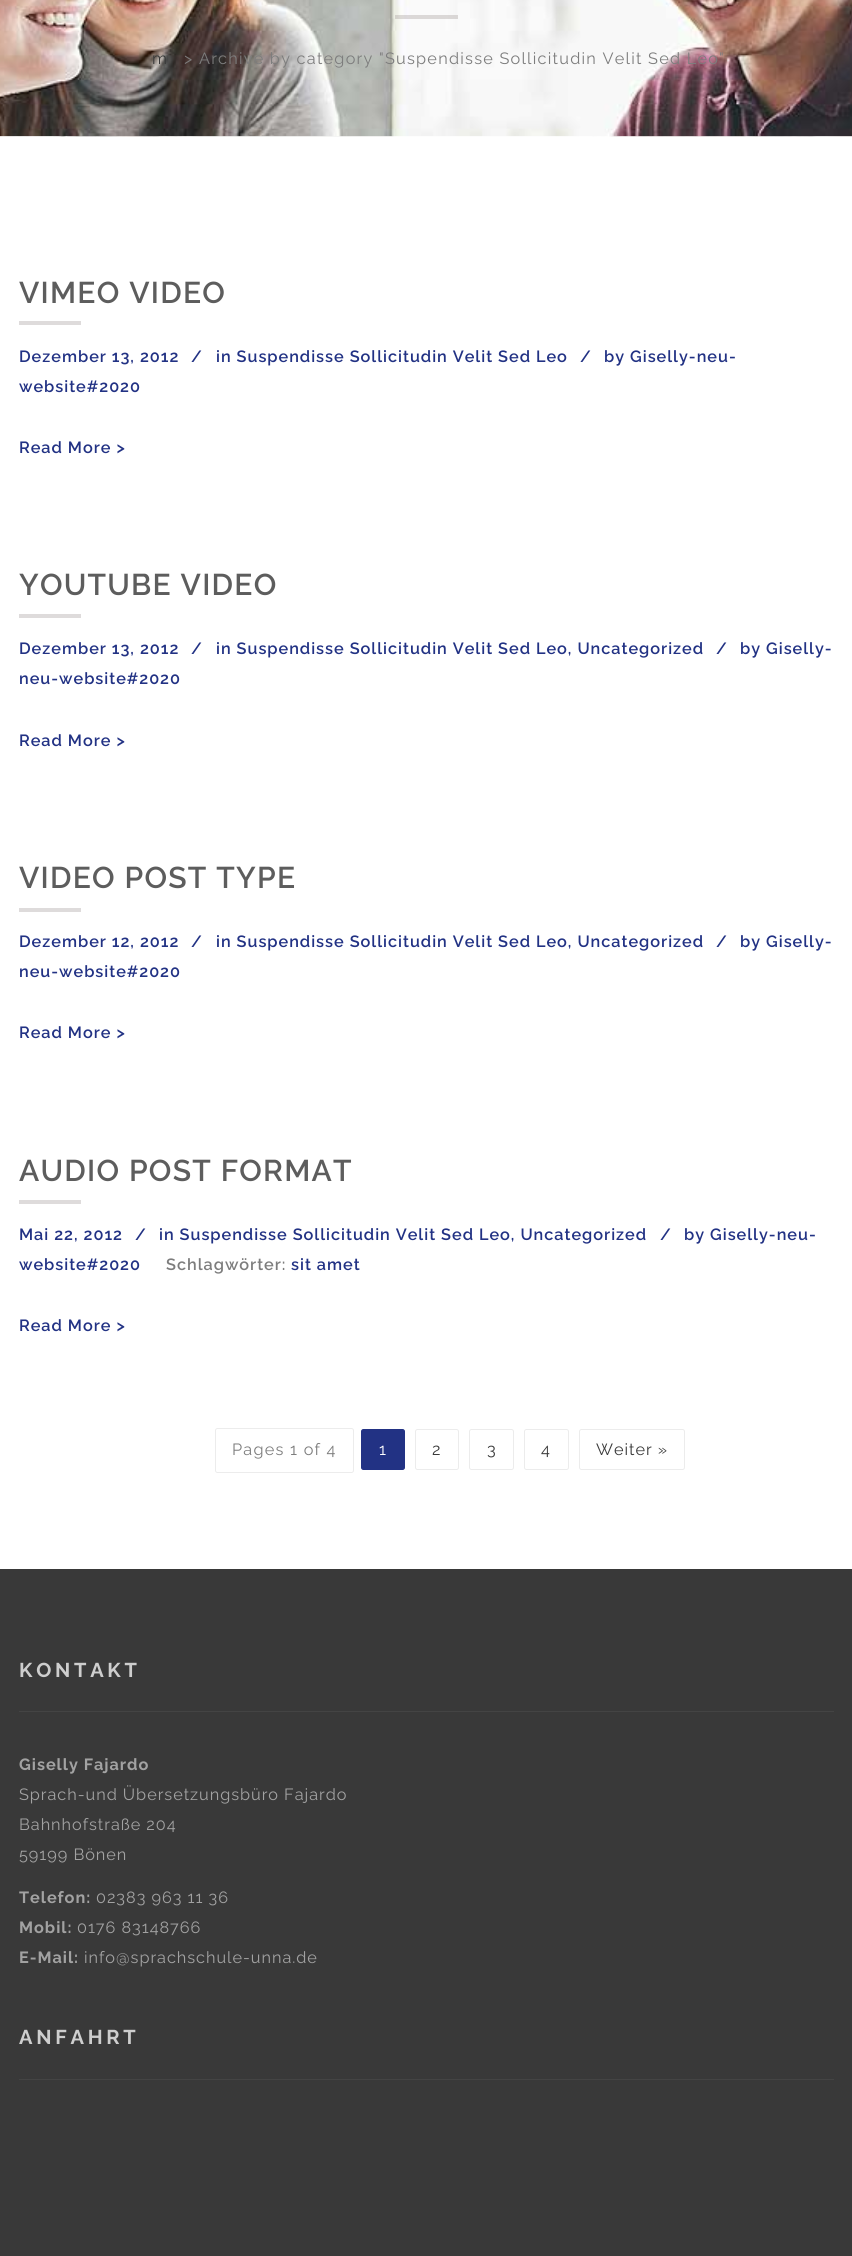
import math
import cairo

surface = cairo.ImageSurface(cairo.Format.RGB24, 852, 2256)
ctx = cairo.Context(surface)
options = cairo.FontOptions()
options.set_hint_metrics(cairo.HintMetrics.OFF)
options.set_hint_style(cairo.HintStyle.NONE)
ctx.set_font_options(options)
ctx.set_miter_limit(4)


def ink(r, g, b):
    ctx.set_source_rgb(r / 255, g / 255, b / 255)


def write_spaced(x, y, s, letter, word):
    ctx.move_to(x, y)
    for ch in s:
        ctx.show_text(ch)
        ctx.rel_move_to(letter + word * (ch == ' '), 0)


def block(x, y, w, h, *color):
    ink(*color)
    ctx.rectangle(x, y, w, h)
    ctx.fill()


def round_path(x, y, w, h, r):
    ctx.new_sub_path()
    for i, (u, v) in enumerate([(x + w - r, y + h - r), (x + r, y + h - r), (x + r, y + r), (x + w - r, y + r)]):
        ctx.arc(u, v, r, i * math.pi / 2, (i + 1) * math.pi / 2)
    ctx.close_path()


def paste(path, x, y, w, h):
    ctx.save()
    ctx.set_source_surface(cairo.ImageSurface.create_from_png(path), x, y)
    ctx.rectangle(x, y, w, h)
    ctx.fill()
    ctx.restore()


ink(255, 255, 255)
ctx.paint()
paste("pic1.png", 0, 0, 852, 137)
ctx.set_source_rgba(0.678, 0.647, 0.643, 0.4)
ctx.rectangle(395, 15, 63, 4)
ctx.fill()
ctx.select_font_face("Raleway")
ctx.set_font_size(16.25)
ink(57, 57, 57)
write_spaced(152, 64, "m", 1.25, 0)
ink(125, 125, 125)
write_spaced(184, 64, "> Archive by category \"Suspendisse Sollicitudin Velit Sed Leo\"", 1.25, 0)
ctx.select_font_face("Raleway SemiBold")
ctx.set_font_size(30)
ink(93, 93, 93)
write_spaced(19, 303, "VIMEO VIDEO", 1.25, 0)
block(19, 321, 62, 4, 222, 219, 219)
ctx.set_font_size(16.25)
ink(34, 50, 132)
write_spaced(19, 362, "Dezember 13, 2012", 0.98, 0)
write_spaced(191, 362, "/", 0.98, 0)
write_spaced(216, 362, "in Suspendisse Sollicitudin Velit Sed Leo", 0.98, 0)
write_spaced(580, 362, "/", 0.98, 0)
write_spaced(604, 362, "by Giselly-neu-", 0.98, 0)
write_spaced(19, 392, "website#2020", 0.98, 0)
write_spaced(19, 453, "Read More >", 0.98, 0)
ctx.set_font_size(30)
ink(93, 93, 93)
write_spaced(19, 595, "YOUTUBE VIDEO", 1.25, 0)
block(19, 614, 62, 4, 222, 219, 219)
ctx.set_font_size(16.25)
ink(34, 50, 132)
write_spaced(19, 654, "Dezember 13, 2012", 0.98, 0)
write_spaced(191, 654, "/", 0.98, 0)
write_spaced(216, 654, "in Suspendisse Sollicitudin Velit Sed Leo, Uncategorized", 0.98, 0)
write_spaced(716, 654, "/", 0.98, 0)
write_spaced(740, 654, "by Giselly-", 0.98, 0)
write_spaced(19, 684, "neu-website#2020", 0.98, 0)
write_spaced(19, 746, "Read More >", 0.98, 0)
ctx.set_font_size(30)
ink(93, 93, 93)
write_spaced(19, 888, "VIDEO POST TYPE", 1.25, 0)
block(19, 908, 62, 4, 222, 219, 219)
ctx.set_font_size(16.25)
ink(34, 50, 132)
write_spaced(19, 947, "Dezember 12, 2012", 0.98, 0)
write_spaced(191, 947, "/", 0.98, 0)
write_spaced(216, 947, "in Suspendisse Sollicitudin Velit Sed Leo, Uncategorized", 0.98, 0)
write_spaced(716, 947, "/", 0.98, 0)
write_spaced(740, 947, "by Giselly-", 0.98, 0)
write_spaced(19, 977, "neu-website#2020", 0.98, 0)
write_spaced(19, 1038, "Read More >", 0.98, 0)
ctx.set_font_size(30)
ink(93, 93, 93)
write_spaced(19, 1181, "AUDIO POST FORMAT", 1.25, 0)
block(19, 1200, 62, 4, 222, 219, 219)
ctx.set_font_size(16.25)
ink(34, 50, 132)
write_spaced(19, 1240, "Mai 22, 2012", 0.98, 0)
write_spaced(135, 1240, "/", 0.98, 0)
write_spaced(159, 1240, "in Suspendisse Sollicitudin Velit Sed Leo, Uncategorized", 0.98, 0)
write_spaced(660, 1240, "/", 0.98, 0)
write_spaced(684, 1240, "by Giselly-neu-", 0.98, 0)
write_spaced(19, 1270, "website#2020", 0.98, 0)
ink(125, 125, 125)
write_spaced(166, 1270, "Schlagwörter:", 0.98, 0)
ink(34, 50, 132)
write_spaced(291, 1270, "sit amet", 0.98, 0)
write_spaced(19, 1331, "Read More >", 0.98, 0)
round_path(215.5, 1428.5, 138, 44, 2)
ink(236, 236, 236)
ctx.set_line_width(1)
ctx.stroke()
ctx.select_font_face("Raleway")
ink(125, 125, 125)
write_spaced(232, 1455, "Pages 1 of 4", 1.25, 0)
ink(34, 50, 132)
round_path(361.5, 1429.5, 43, 40, 2)
ctx.fill_preserve()
ctx.stroke()
ink(255, 255, 255)
write_spaced(379, 1455, "1", 0.98, 0)
round_path(415.5, 1429.5, 43, 40, 2)
ink(236, 236, 236)
ctx.stroke()
ink(57, 57, 57)
write_spaced(432, 1455, "2", 0.98, 0)
round_path(469.5, 1429.5, 44, 40, 2)
ink(236, 236, 236)
ctx.stroke()
ink(57, 57, 57)
write_spaced(487, 1455, "3", 0.98, 0)
round_path(524.5, 1429.5, 44, 40, 2)
ink(236, 236, 236)
ctx.stroke()
ink(57, 57, 57)
write_spaced(541, 1455, "4", 0.98, 0)
round_path(579.5, 1429.5, 105, 40, 2)
ink(236, 236, 236)
ctx.stroke()
ink(57, 57, 57)
write_spaced(596, 1455, "Weiter »", 0.98, 0)
block(0, 1569, 852, 687, 57, 57, 57)
block(19, 1711, 815, 1, 68, 68, 68)
ctx.select_font_face("Raleway", cairo.FontSlant.NORMAL, cairo.FontWeight.BOLD)
ctx.set_font_size(20)
ink(206, 206, 206)
write_spaced(19, 1677, "KONTAKT", 3.75, 0)
ctx.set_font_size(16.25)
ink(162, 162, 162)
write_spaced(19, 1770, "Giselly Fajardo", 0.98, 0)
ctx.select_font_face("Raleway")
write_spaced(19, 1800, "Sprach-und Übersetzungsbüro Fajardo", 0.98, 0)
write_spaced(19, 1830, "Bahnhofstraße 204", 0.98, 0)
write_spaced(19, 1860, "59199 Bönen", 0.98, 0)
ctx.select_font_face("Raleway", cairo.FontSlant.NORMAL, cairo.FontWeight.BOLD)
write_spaced(19, 1903, "Telefon:", 0.98, 0)
ctx.select_font_face("Raleway")
write_spaced(96, 1903, "02383 963 11 36", 0.98, 0)
ctx.select_font_face("Raleway", cairo.FontSlant.NORMAL, cairo.FontWeight.BOLD)
write_spaced(19, 1933, "Mobil:", 0.98, 0)
ctx.select_font_face("Raleway")
write_spaced(77, 1933, "0176 83148766", 0.98, 0)
ctx.select_font_face("Raleway", cairo.FontSlant.NORMAL, cairo.FontWeight.BOLD)
write_spaced(19, 1963, "E-Mail:", 0.98, 0)
ctx.select_font_face("Raleway")
write_spaced(84, 1963, "info@sprachschule-unna.de", 0.98, 0)
block(19, 2079, 815, 1, 68, 68, 68)
ctx.select_font_face("Raleway", cairo.FontSlant.NORMAL, cairo.FontWeight.BOLD)
ctx.set_font_size(20)
ink(206, 206, 206)
write_spaced(19, 2044, "ANFAHRT", 3.75, 0)
surface.write_to_png("screenshot.png")
